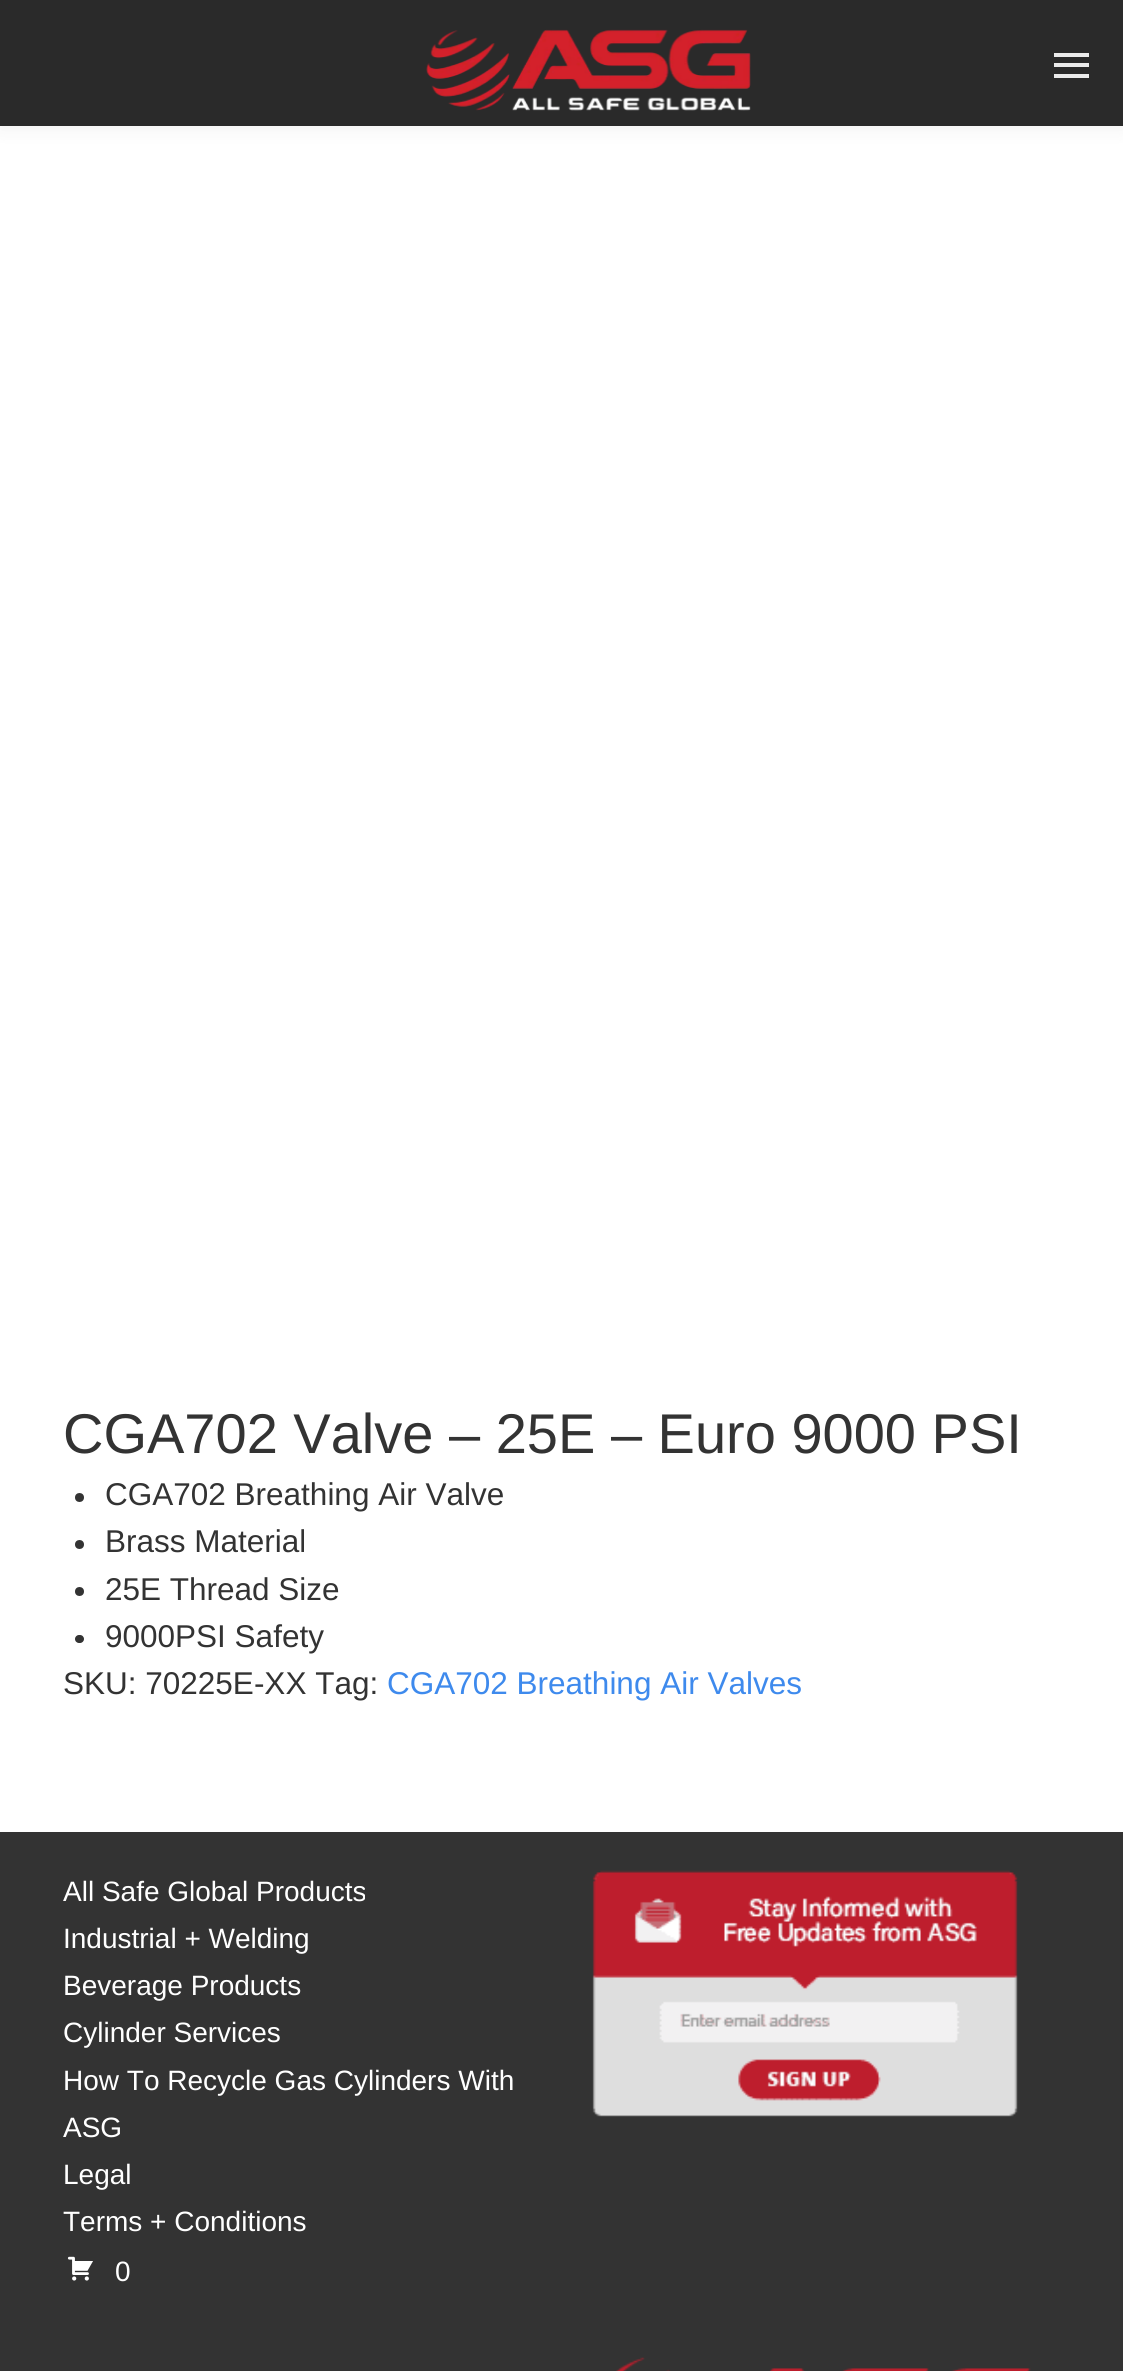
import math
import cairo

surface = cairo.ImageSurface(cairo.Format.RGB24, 1123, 2371)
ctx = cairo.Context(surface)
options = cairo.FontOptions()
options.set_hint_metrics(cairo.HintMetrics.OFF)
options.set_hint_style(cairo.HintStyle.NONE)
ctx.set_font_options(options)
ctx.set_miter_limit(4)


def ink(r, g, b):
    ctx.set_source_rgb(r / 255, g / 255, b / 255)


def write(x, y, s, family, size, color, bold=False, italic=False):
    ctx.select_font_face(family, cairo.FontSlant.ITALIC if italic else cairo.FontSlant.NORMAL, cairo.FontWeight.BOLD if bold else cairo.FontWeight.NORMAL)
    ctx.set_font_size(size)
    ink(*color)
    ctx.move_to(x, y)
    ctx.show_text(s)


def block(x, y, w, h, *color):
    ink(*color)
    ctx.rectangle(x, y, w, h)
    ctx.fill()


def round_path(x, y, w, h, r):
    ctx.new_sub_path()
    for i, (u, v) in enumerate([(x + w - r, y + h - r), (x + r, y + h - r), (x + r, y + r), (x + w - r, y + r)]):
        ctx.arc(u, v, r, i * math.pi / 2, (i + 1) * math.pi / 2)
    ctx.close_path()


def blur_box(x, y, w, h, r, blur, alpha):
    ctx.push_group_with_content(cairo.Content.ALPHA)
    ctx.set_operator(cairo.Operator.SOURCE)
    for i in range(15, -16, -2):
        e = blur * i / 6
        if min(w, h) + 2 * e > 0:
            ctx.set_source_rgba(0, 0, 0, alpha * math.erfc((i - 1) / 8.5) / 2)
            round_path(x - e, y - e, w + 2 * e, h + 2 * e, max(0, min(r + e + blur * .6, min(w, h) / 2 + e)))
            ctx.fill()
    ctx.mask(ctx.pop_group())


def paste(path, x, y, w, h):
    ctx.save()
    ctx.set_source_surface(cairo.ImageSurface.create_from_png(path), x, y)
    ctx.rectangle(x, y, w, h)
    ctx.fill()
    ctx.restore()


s1 = dict(family="Liberation Sans", size=56, color=(51, 51, 51))
s2 = dict(family="Liberation Sans", size=31.5, color=(51, 51, 51))
s3 = dict(family="Liberation Sans", size=31.5, color=(62, 138, 237))
s4 = dict(family="Liberation Sans", size=28, color=(255, 255, 255))

ink(255, 255, 255)
ctx.paint()
ink(0, 0, 0)
blur_box(0, 4, 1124, 126, 0, 9, 0.05)
block(0, 0, 1123, 126, 42, 42, 42)
paste("pic1.png", 426, 29, 325, 82)
block(1054, 53, 35, 4, 235, 235, 235)
block(1054, 63, 35, 4, 235, 235, 235)
block(1054, 74, 35, 4, 235, 235, 235)
write(63, 1453, "CGA702 Valve – 25E – Euro 9000 PSI", **s1)
ctx.new_path()
ctx.arc(79.5, 1497.5, 4.5, 0, 2 * math.pi)
ctx.fill()
write(105, 1505, "CGA702 Breathing Air Valve", **s2)
ctx.new_path()
ctx.arc(79.5, 1544.5, 4.5, 0, 2 * math.pi)
ctx.fill()
write(105, 1552, "Brass Material", **s2)
ctx.new_path()
ctx.arc(79.5, 1591.5, 4.5, 0, 2 * math.pi)
ctx.fill()
write(105, 1600, "25E Thread Size", **s2)
round_path(75, 1635, 9, 8, 4)
ctx.fill()
write(105, 1647, "9000PSI Safety", **s2)
write(63, 1694, "SKU: 70225E-XX Tag:", **s2)
write(387, 1694, "CGA702 Breathing Air Valves", **s3)
block(0, 1832, 1123, 539, 51, 51, 51)
write(63, 1901, "All Safe Global Products", **s4)
write(63, 1948, "Industrial + Welding", **s4)
write(63, 1995, "Beverage Products", **s4)
write(63, 2042, "Cylinder Services", **s4)
write(63, 2090, "How To Recycle Gas Cylinders With", **s4)
write(63, 2137, "ASG", **s4)
write(63, 2184, "Legal", **s4)
write(63, 2231, "Terms + Conditions", **s4)
paste("pic2.png", 67, 2256, 26, 25)
write(115, 2281, "0", **s4)
paste("pic3.png", 592, 1870, 426, 247)
paste("pic4.png", 616, 2357, 415, 14)
surface.write_to_png("screenshot.png")
